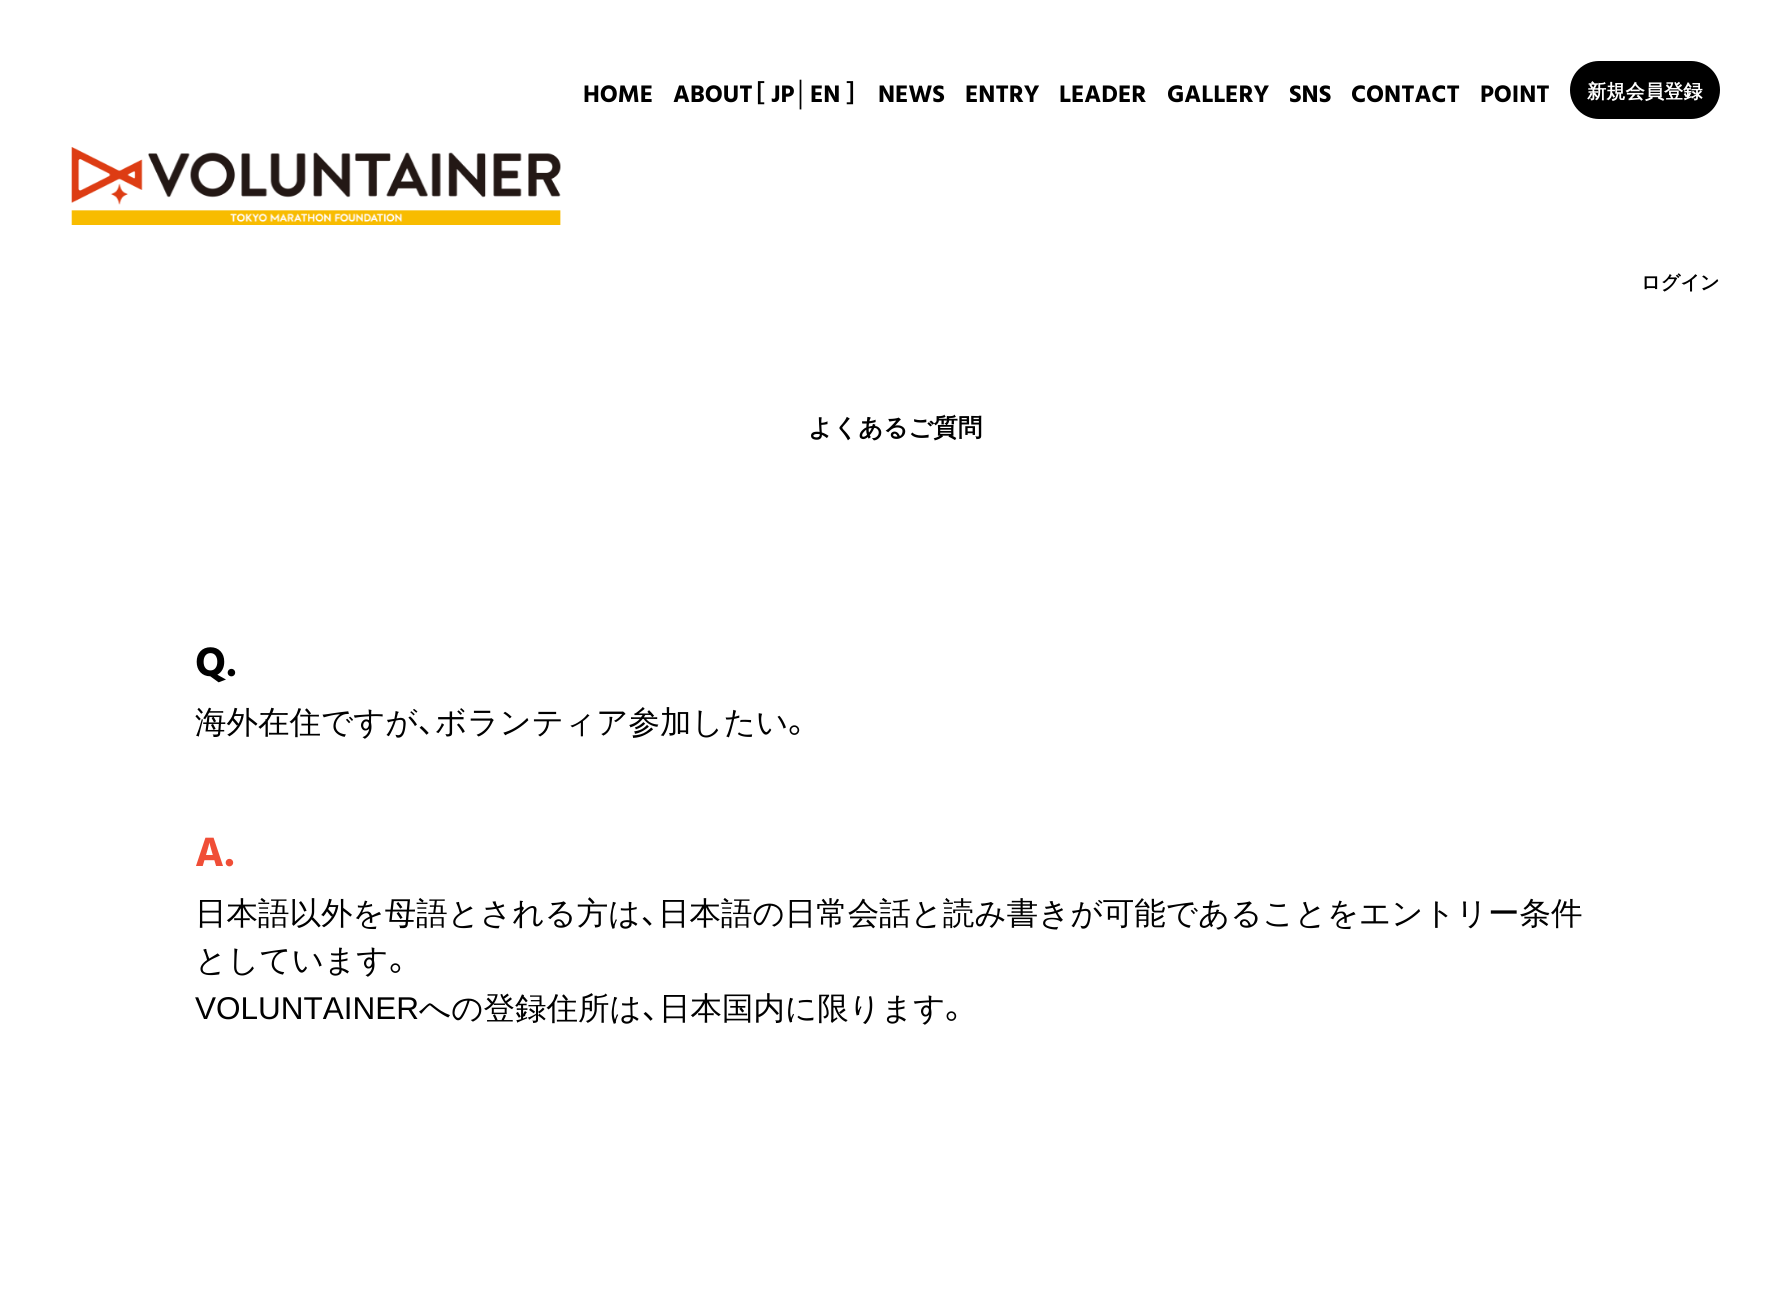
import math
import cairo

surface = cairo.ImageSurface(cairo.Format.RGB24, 1789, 1298)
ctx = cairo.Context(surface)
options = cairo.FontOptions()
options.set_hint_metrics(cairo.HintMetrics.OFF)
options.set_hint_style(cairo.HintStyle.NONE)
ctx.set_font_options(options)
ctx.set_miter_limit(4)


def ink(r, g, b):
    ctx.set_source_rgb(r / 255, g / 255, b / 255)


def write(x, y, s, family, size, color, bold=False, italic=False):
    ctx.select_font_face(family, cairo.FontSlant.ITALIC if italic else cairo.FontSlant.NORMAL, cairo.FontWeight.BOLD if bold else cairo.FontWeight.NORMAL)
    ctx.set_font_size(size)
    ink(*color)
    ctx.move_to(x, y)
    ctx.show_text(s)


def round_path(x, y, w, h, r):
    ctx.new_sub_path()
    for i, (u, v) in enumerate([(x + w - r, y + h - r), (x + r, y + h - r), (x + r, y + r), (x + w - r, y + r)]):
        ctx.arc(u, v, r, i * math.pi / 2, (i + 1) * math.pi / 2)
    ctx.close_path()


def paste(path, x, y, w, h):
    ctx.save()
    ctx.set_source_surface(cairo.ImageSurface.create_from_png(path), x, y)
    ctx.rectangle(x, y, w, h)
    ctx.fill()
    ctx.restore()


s1 = dict(family="Hind Madurai", size=24.5, color=(0, 0, 0), bold=True)
s2 = dict(family="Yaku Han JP", size=24.5, color=(0, 0, 0), bold=True)
s3 = dict(family="Liberation Sans", size=24.5, color=(0, 0, 0), bold=True)
s4 = dict(family="WenQuanYi Zen Hei", size=19.25, color=(255, 255, 255), bold=True)
s5 = dict(family="WenQuanYi Zen Hei", size=19.25, color=(0, 0, 0), bold=True)
s6 = dict(family="WenQuanYi Zen Hei", size=24.5, color=(0, 0, 0), bold=True)
s7 = dict(family="Hind Madurai", size=42, color=(0, 0, 0), bold=True)
s8 = dict(family="WenQuanYi Zen Hei Medium", size=31.5, color=(0, 0, 0))
s9 = dict(family="Yaku Han JP", size=31.5, color=(0, 0, 0))
s10 = dict(family="Hind Madurai", size=42, color=(240, 78, 55), bold=True)
s11 = dict(family="Liberation Sans", size=31.5, color=(0, 0, 0))

ink(255, 255, 255)
ctx.paint()
paste("pic1.png", 71, 147, 490, 78)
write(583, 102, "HOME", **s1)
write(673, 102, "ABOUT", **s1)
write(753, 102, "［", **s2)
write(771, 102, "JP", **s1)
write(794, 102, "│", **s3)
write(810, 102, "EN", **s1)
write(846, 102, "］", **s2)
write(878, 102, "NEWS", **s1)
write(965, 102, "ENTRY", **s1)
write(1059, 102, "LEADER", **s1)
write(1167, 102, "GALLERY", **s1)
write(1289, 102, "SNS", **s1)
write(1351, 102, "CONTACT", **s1)
write(1480, 102, "POINT", **s1)
round_path(1570, 61, 150, 58, 29)
ctx.fill()
write(1587, 98, "新規会員登録", **s4)
write(1641, 289, "ログイン", **s5)
write(808, 436, "よくあるご質問", **s6)
write(195, 676, "Q.", **s7)
write(195, 733, "海外在住ですが", **s8)
write(418, 733, "、", **s9)
write(435, 733, "ボランティア参加したい", **s8)
write(788, 733, "。", **s9)
write(195, 866, "A.", **s10)
write(195, 924, "日本語以外を母語とされる方は", **s8)
write(641, 924, "、", **s9)
write(658, 924, "日本語の日常会話と読み書きが可能であることをエントリー条件", **s8)
write(195, 971, "としています", **s8)
write(389, 971, "。", **s9)
write(195, 1019, "VOLUNTAINER", **s11)
write(419, 1019, "への登録住所は", **s8)
write(642, 1019, "、", **s9)
write(659, 1019, "日本国内に限ります", **s8)
write(945, 1019, "。", **s9)
surface.write_to_png("screenshot.png")
